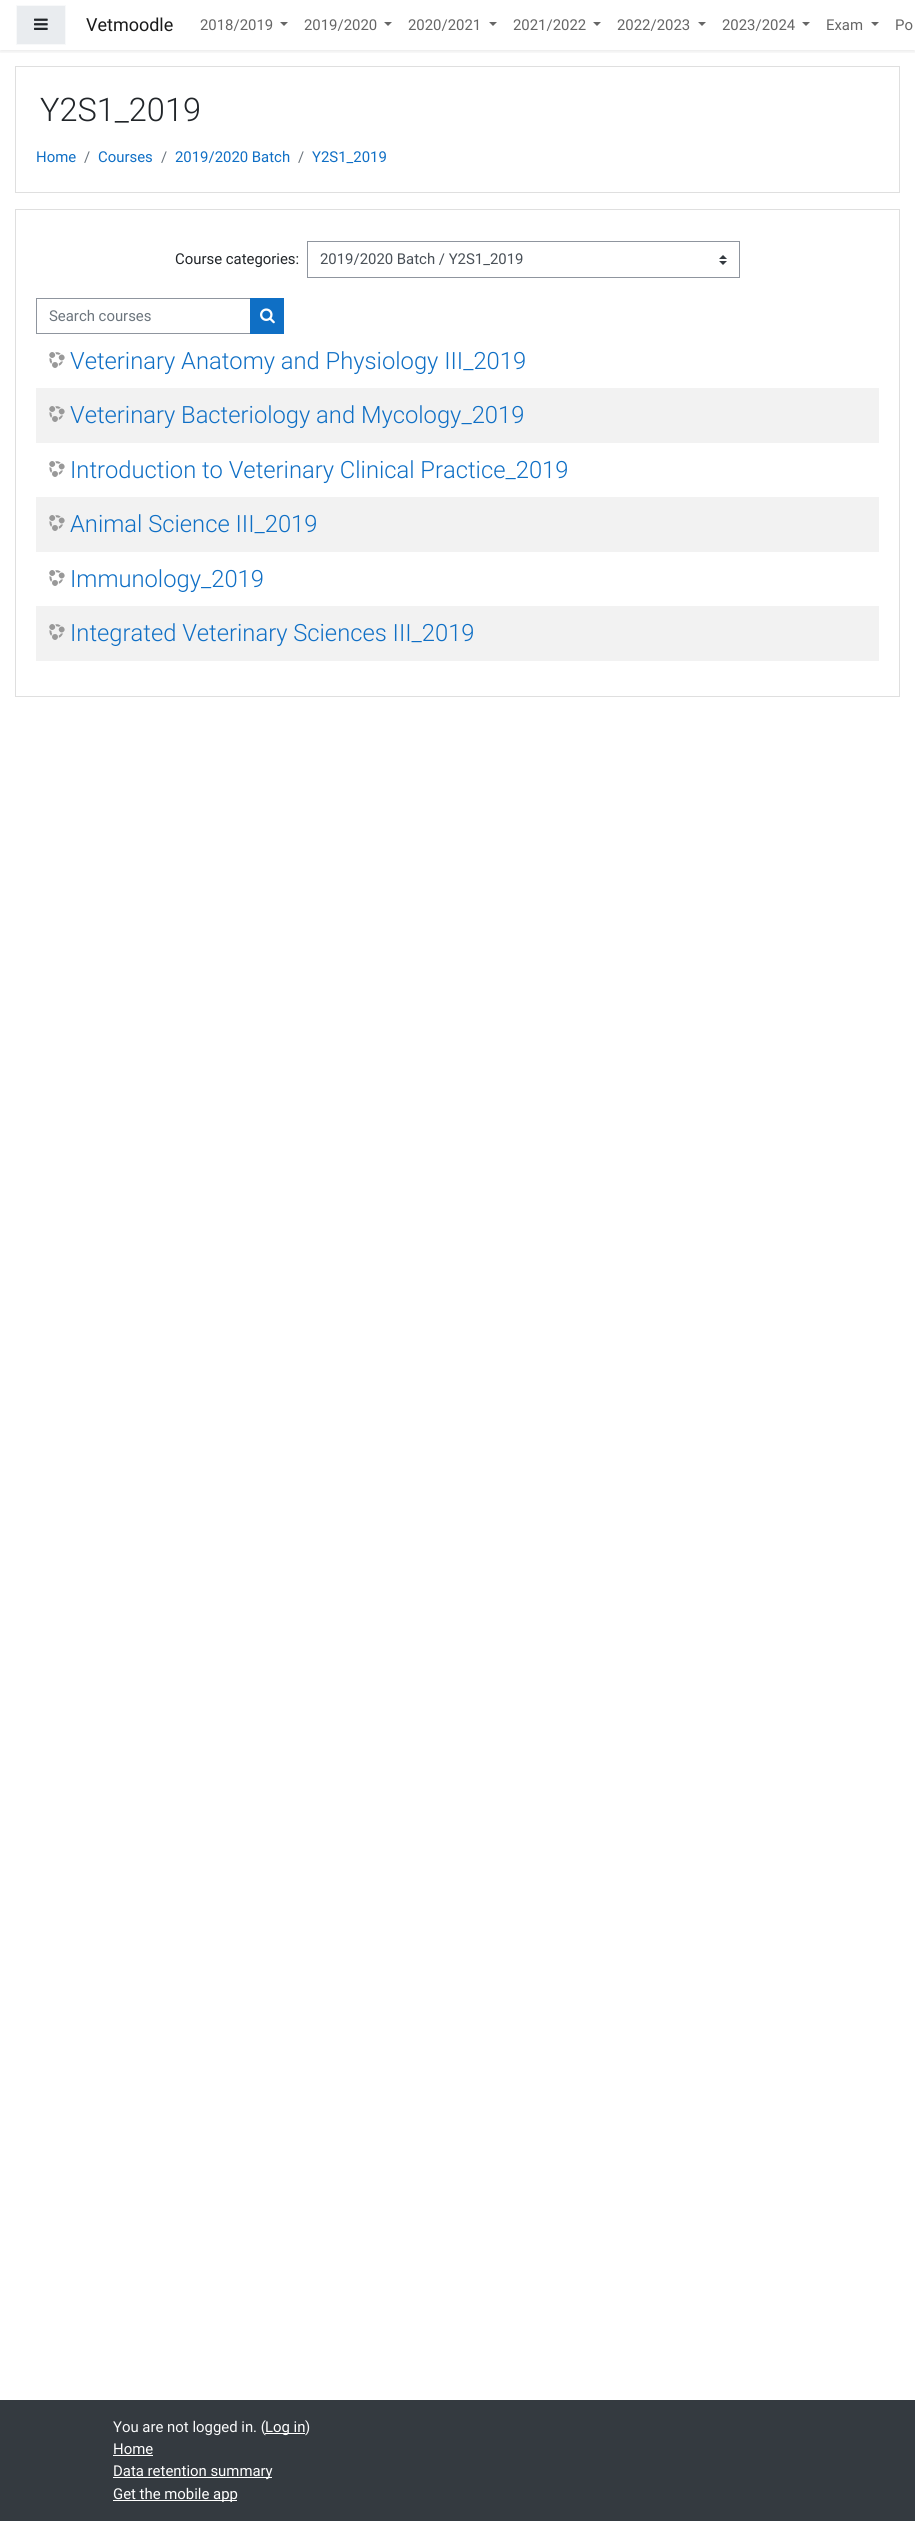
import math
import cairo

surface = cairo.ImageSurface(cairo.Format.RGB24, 915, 2521)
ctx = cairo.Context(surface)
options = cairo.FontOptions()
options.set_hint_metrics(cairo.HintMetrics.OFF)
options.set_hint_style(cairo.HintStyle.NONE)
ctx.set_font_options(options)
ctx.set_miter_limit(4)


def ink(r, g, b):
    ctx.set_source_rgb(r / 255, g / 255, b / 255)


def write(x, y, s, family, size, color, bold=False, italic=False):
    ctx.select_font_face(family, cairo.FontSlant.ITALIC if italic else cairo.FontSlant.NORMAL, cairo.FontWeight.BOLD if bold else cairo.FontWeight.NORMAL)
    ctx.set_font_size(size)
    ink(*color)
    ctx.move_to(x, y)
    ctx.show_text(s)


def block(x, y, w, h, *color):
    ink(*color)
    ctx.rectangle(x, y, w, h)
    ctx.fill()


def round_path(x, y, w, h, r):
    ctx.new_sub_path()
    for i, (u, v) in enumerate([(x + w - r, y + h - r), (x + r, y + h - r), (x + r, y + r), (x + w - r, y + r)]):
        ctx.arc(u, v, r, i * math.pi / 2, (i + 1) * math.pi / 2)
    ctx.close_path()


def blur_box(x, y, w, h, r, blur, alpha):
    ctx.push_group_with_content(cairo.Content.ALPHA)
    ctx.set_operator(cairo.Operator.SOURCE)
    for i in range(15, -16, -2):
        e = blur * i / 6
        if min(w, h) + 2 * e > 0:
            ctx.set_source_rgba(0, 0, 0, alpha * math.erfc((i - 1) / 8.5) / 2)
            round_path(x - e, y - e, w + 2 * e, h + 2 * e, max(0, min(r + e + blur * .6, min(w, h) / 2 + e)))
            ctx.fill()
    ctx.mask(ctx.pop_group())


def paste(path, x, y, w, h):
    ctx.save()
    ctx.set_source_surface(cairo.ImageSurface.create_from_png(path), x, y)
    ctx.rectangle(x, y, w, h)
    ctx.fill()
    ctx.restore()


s1 = dict(family="Roboto", size=18, color=(26, 26, 26))
s2 = dict(family="Roboto", size=14.9, color=(102, 102, 102))
s3 = dict(family="Roboto Light", size=32.5, color=(33, 37, 41))
s4 = dict(family="Roboto", size=14.9, color=(15, 111, 197))
s5 = dict(family="Roboto", size=14.9, color=(108, 117, 125))
s6 = dict(family="Roboto", size=14.9, color=(33, 37, 41))
s7 = dict(family="Roboto", size=14.9, color=(73, 80, 87))
s8 = dict(family="Roboto Light", size=23.75, color=(15, 111, 197))
s9 = dict(family="Roboto", size=14.9, color=(248, 249, 250))
s10 = dict(family="Roboto", size=14.9, color=(255, 255, 255))

ink(255, 255, 255)
ctx.paint()
ctx.save()
ctx.rectangle(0, 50, 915, 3)
ctx.clip()
ink(0, 0, 0)
blur_box(0, 2, 915, 50, 0, 2, 0.08)
ctx.restore()
ink(233, 236, 239)
ctx.rectangle(16.5, 5.5, 49, 39)
ctx.fill_preserve()
ink(248, 249, 250)
ctx.set_line_width(1)
ctx.stroke()
paste("pic1.png", 34, 18, 14, 12)
write(86, 31, "Vetmoodle", **s1)
write(200, 30, "2018/2019", **s2)
ctx.new_path()
ctx.move_to(280, 22)
ctx.line_to(288, 22)
ctx.line_to(284, 26)
ctx.close_path()
ctx.fill()
write(304, 30, "2019/2020", **s2)
ctx.new_path()
ctx.move_to(384, 22)
ctx.line_to(392, 22)
ctx.line_to(388, 26)
ctx.close_path()
ctx.fill()
write(408, 30, "2020/2021", **s2)
ctx.new_path()
ctx.move_to(489, 22)
ctx.line_to(497, 22)
ctx.line_to(493, 26)
ctx.close_path()
ctx.fill()
write(513, 30, "2021/2022", **s2)
ctx.new_path()
ctx.move_to(593, 22)
ctx.line_to(601, 22)
ctx.line_to(597, 26)
ctx.close_path()
ctx.fill()
write(617, 30, "2022/2023", **s2)
ctx.new_path()
ctx.move_to(698, 22)
ctx.line_to(706, 22)
ctx.line_to(702, 26)
ctx.close_path()
ctx.fill()
write(722, 30, "2023/2024", **s2)
ctx.new_path()
ctx.move_to(802, 22)
ctx.line_to(810, 22)
ctx.line_to(806, 26)
ctx.close_path()
ctx.fill()
write(826, 30, "Exam", **s2)
ctx.new_path()
ctx.move_to(871, 22)
ctx.line_to(879, 22)
ctx.line_to(875, 26)
ctx.close_path()
ctx.fill()
write(895, 30, "Po", **s2)
ctx.rectangle(15.5, 66.5, 884, 126)
ink(223, 223, 223)
ctx.stroke()
write(40, 121, "Y2S1_2019", **s3)
write(36, 162, "Home", **s4)
write(84, 162, "/", **s5)
write(98, 162, "Courses", **s4)
write(161, 162, "/", **s5)
write(175, 162, "2019/2020 Batch", **s4)
write(298, 162, "/", **s5)
write(312, 162, "Y2S1_2019", **s4)
ctx.rectangle(15.5, 209.5, 884, 487)
ink(223, 223, 223)
ctx.stroke()
write(175, 264, "Course categories:", **s6)
paste("pic2.png", 719, 255, 8, 10)
ctx.rectangle(307.5, 241.5, 432, 36)
ink(143, 149, 158)
ctx.stroke()
write(320, 264, "2019/2020 Batch / Y2S1_2019", **s7)
ctx.rectangle(36.5, 298.5, 214, 35)
ink(143, 149, 158)
ctx.stroke()
write(49, 321, "Search courses", **s5)
block(250, 298, 34, 36, 15, 111, 197)
paste("pic3.png", 260, 308, 15, 16)
paste("pic4.png", 49, 352, 16, 16)
write(70, 369, "Veterinary Anatomy and Physiology III_2019", **s8)
block(36, 388, 843, 55, 242, 242, 242)
paste("pic5.png", 49, 406, 16, 16)
write(70, 423, "Veterinary Bacteriology and Mycology_2019", **s8)
paste("pic4.png", 49, 461, 16, 16)
write(70, 478, "Introduction to Veterinary Clinical Practice_2019", **s8)
block(36, 497, 843, 55, 242, 242, 242)
paste("pic5.png", 49, 515, 16, 16)
write(70, 532, "Animal Science III_2019", **s8)
paste("pic4.png", 49, 570, 16, 16)
write(70, 587, "Immunology_2019", **s8)
block(36, 606, 843, 55, 242, 242, 242)
paste("pic5.png", 49, 624, 16, 16)
write(70, 641, "Integrated Veterinary Sciences III_2019", **s8)
block(0, 2400, 915, 121, 52, 58, 64)
write(113, 2432, "You are not logged in. (", **s9)
block(265, 2433, 40, 1, 255, 255, 255)
write(265, 2432, "Log in", **s10)
write(305, 2432, ")", **s9)
write(113, 2454, "Home", **s10)
block(113, 2455, 40, 1, 255, 255, 255)
block(113, 2477, 159, 1, 255, 255, 255)
write(113, 2476, "Data retention summary", **s10)
block(113, 2500, 124, 1, 255, 255, 255)
write(113, 2499, "Get the mobile app", **s10)
surface.write_to_png("screenshot.png")
